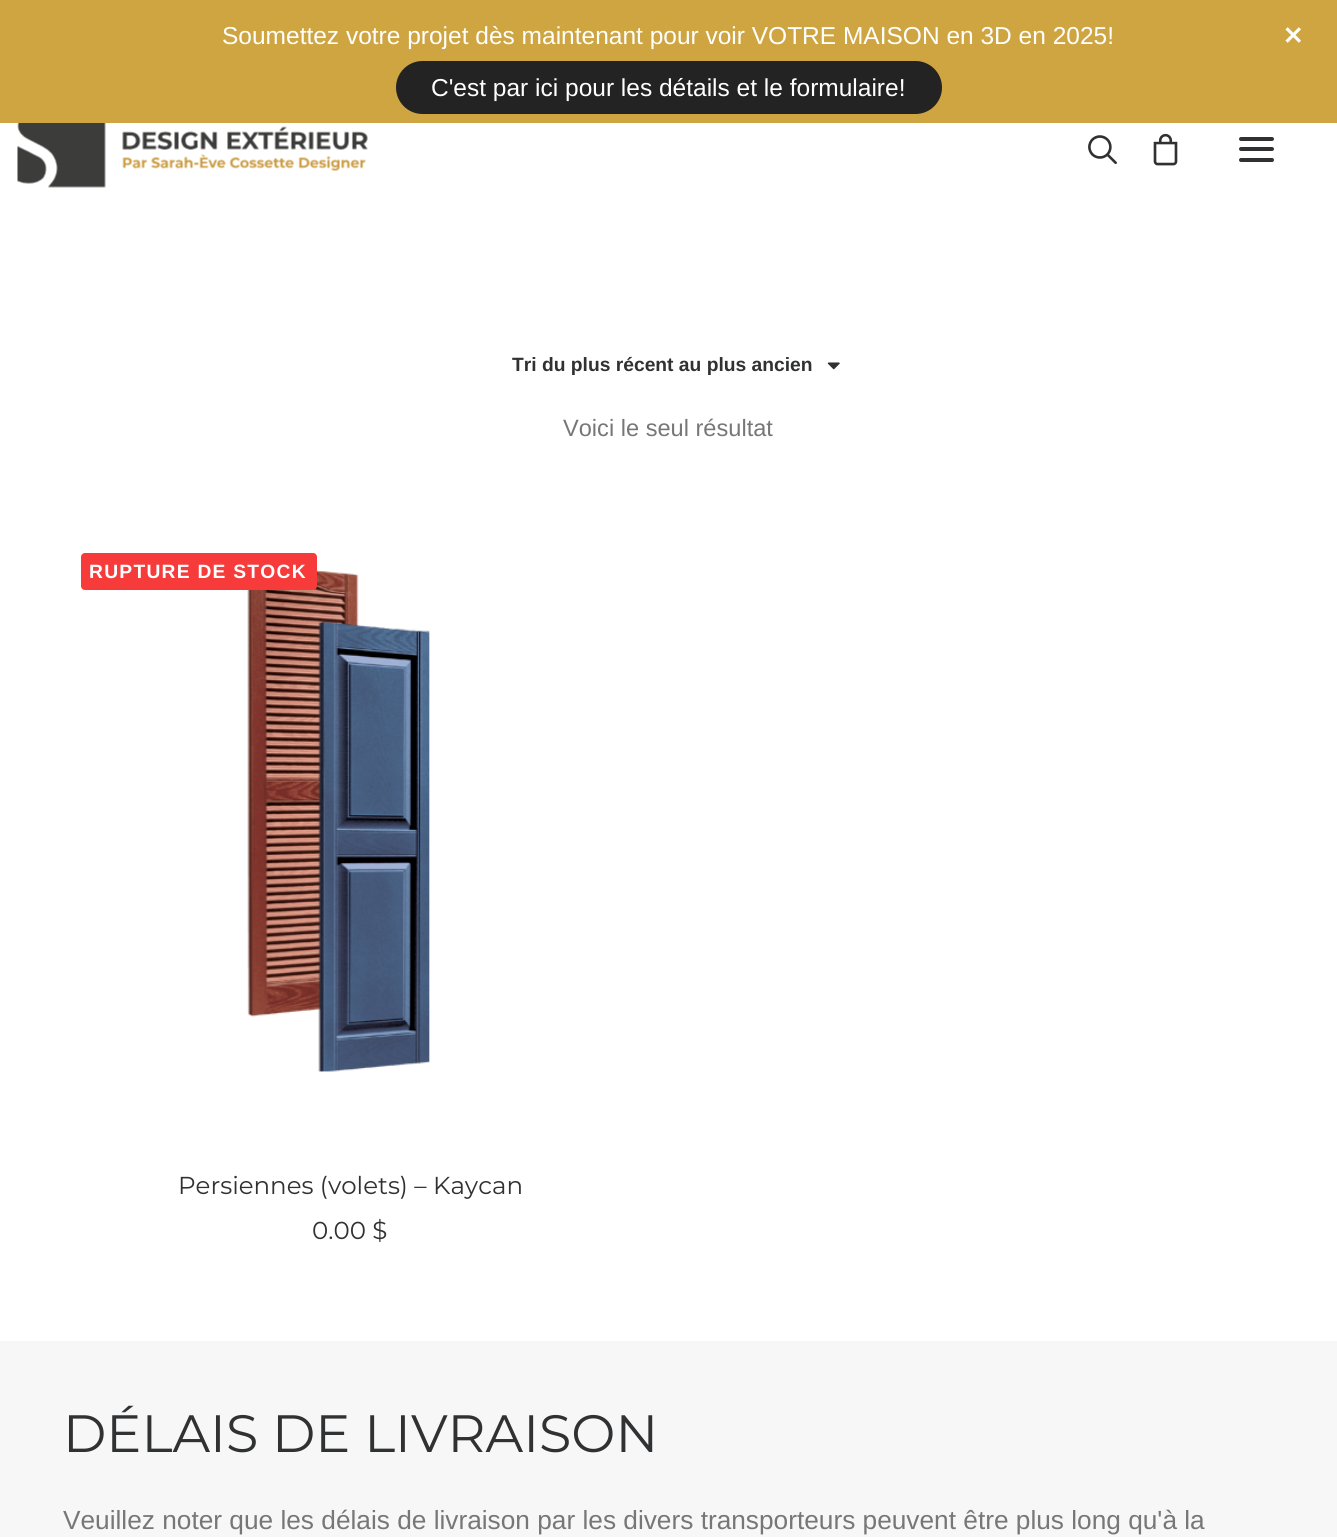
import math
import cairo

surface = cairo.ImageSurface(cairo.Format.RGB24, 1337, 1537)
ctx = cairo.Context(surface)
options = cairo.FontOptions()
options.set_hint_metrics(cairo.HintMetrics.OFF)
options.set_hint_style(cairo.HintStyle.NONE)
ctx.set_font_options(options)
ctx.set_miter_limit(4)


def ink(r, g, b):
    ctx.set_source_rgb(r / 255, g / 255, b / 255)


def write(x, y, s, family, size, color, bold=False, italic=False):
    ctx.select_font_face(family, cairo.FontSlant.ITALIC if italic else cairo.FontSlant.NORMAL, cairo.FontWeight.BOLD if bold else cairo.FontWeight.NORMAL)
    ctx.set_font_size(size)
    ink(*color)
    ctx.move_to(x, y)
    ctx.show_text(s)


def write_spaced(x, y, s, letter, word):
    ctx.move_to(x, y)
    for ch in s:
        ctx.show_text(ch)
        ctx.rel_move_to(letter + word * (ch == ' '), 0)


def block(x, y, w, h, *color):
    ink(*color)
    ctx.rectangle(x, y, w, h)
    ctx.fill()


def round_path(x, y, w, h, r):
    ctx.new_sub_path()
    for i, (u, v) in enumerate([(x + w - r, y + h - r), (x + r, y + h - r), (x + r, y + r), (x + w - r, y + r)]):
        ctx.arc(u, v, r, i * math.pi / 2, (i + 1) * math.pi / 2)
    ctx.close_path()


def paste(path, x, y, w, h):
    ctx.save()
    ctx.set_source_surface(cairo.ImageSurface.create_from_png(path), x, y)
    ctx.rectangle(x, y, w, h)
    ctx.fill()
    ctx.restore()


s1 = dict(family="Liberation Sans", size=24.5, color=(255, 255, 255))
s2 = dict(family="Liberation Sans", size=19.25, color=(48, 49, 51), bold=True)
s3 = dict(family="Liberation Sans", size=23.6, color=(119, 119, 119))
s4 = dict(family="Montserrat", size=24.5, color=(48, 49, 51))
s5 = dict(family="Montserrat", size=52.5, color=(48, 49, 51))
s6 = dict(family="Liberation Sans", size=26.25, color=(119, 119, 119))

ink(247, 247, 247)
ctx.paint()
block(0, 0, 1337, 123, 206, 165, 65)
write(222, 44, "Soumettez votre projet dès maintenant pour voir VOTRE MAISON en 3D en 2025!", **s1)
ink(35, 35, 35)
round_path(396, 61, 546, 53, 26.5)
ctx.fill()
write(431, 96, "C'est par ici pour les détails et le formulaire!", **s1)
paste("pic1.png", 1285, 27, 16, 16)
block(0, 123, 1337, 1218, 255, 255, 255)
paste("pic2.png", 17, 123, 351, 65)
paste("pic3.png", 1088, 135, 29, 29)
paste("pic4.png", 1153, 133, 25, 33)
ink(48, 49, 51)
round_path(1239, 147, 35, 4, 2)
ctx.fill()
round_path(1239, 137, 35, 4, 2)
ctx.fill()
round_path(1239, 158, 35, 4, 2)
ctx.fill()
write(512, 371, "Tri du plus récent au plus ancien", **s2)
paste("pic5.png", 827, 362, 13, 8)
write(563, 436, "Voici le seul résultat", **s3)
paste("pic6.png", 247, 564, 183, 508)
ink(247, 59, 59)
round_path(81, 553, 236, 37, 4)
ctx.fill()
ctx.select_font_face("Liberation Sans", cairo.FontSlant.NORMAL, cairo.FontWeight.BOLD)
ctx.set_font_size(19.25)
ink(255, 255, 255)
write_spaced(89, 578, "RUPTURE DE STOCK", 1.25, 0)
write(178, 1194, "Persiennes (volets) – Kaycan", **s4)
write(312, 1239, "0.00 $", **s4)
write(63, 1452, "DÉLAIS DE LIVRAISON", **s5)
write(63, 1529, "Veuillez noter que les délais de livraison par les divers transporteurs peuvent être plus long qu'à la", **s6)
surface.write_to_png("screenshot.png")
